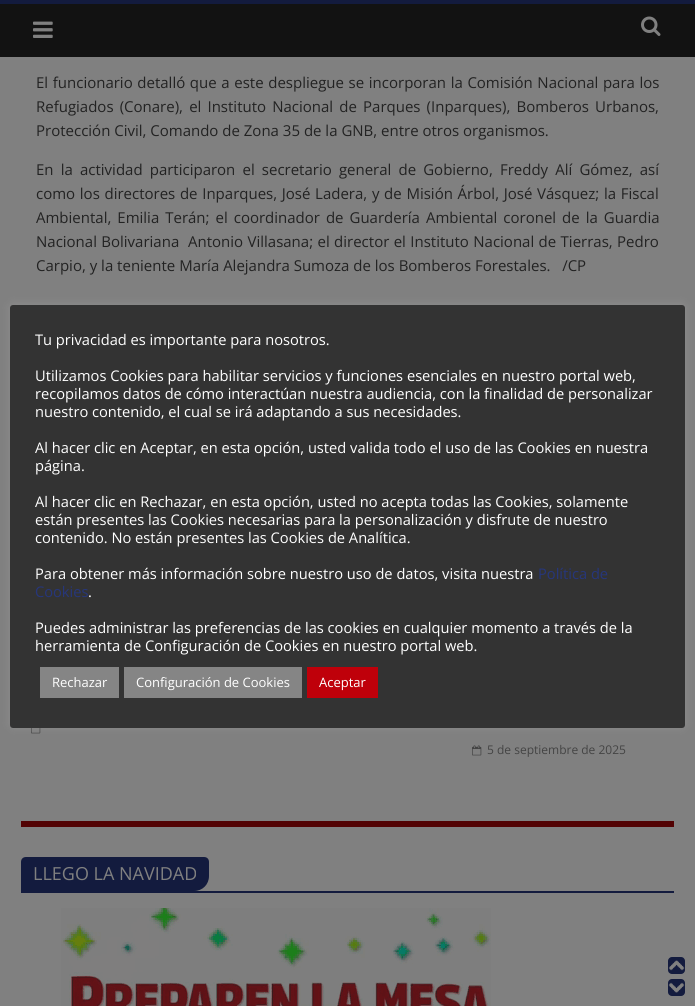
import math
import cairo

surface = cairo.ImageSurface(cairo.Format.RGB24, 695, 1006)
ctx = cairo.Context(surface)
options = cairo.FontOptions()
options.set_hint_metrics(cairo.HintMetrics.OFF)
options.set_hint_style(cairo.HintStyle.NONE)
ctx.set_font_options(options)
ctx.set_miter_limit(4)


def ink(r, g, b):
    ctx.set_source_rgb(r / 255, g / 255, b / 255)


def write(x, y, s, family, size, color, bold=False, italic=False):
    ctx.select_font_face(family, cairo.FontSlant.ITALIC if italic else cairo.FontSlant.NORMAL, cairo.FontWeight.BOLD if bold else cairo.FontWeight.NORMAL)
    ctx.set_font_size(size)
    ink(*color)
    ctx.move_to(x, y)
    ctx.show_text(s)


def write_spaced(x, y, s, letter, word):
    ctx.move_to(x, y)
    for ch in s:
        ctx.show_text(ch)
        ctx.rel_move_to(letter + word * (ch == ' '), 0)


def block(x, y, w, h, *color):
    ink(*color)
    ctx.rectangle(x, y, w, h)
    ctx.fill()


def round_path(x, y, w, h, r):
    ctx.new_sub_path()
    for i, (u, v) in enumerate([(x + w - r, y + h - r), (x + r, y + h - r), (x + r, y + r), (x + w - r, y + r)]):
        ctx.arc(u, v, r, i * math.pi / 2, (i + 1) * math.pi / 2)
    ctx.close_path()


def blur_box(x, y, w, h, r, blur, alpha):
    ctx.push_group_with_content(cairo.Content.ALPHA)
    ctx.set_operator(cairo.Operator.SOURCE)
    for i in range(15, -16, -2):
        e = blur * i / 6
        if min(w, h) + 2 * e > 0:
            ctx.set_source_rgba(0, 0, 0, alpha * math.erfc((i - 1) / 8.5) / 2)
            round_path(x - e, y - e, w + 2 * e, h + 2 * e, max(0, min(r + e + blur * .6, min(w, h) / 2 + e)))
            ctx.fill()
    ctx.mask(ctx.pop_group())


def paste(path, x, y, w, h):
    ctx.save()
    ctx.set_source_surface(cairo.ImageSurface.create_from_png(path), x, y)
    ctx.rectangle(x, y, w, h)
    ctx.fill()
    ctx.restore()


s1 = dict(family="Open Sans", size=15, color=(34, 34, 34))
s2 = dict(family="Open Sans", size=12, color=(68, 68, 68))
s3 = dict(family="Open Sans", size=18, color=(128, 128, 128))
s4 = dict(family="Open Sans", size=14.65, color=(255, 255, 255))
s5 = dict(family="Open Sans", size=14.65, color=(38, 54, 123))
s6 = dict(family="Open Sans", size=13, color=(255, 255, 255))

ink(128, 128, 128)
ctx.paint()
block(0, 4, 695, 53, 18, 18, 18)
block(0, 0, 695, 4, 19, 27, 62)
paste("pic1.png", 33, 21, 20, 17)
paste("pic2.png", 641, 16, 20, 20)
ctx.select_font_face("Open Sans")
ctx.set_font_size(15)
ink(34, 34, 34)
write_spaced(36, 88, "El funcionario detalló que a este despliegue se incorporan la Comisión Nacional para los", 0, 0.75)
write_spaced(36, 112, "Refugiados (Conare), el Instituto Nacional de Parques (Inparques), Bomberos Urbanos,", 0, 2.25)
write(36, 136, "Protección Civil, Comando de Zona 35 de la GNB, entre otros organismos.", **s1)
write_spaced(36, 175, "En la actividad participaron el secretario general de Gobierno, Freddy Alí Gómez, así", 0, 3.25)
write_spaced(36, 199, "como los directores de Inparques, José Ladera, y de Misión Árbol, José Vásquez; la Fiscal", 0, 0.8)
write_spaced(36, 223, "Ambiental, Emilia Terán; el coordinador de Guardería Ambiental coronel de la Guardia", 0, 2.1)
write_spaced(36, 247, "Nacional Bolivariana  Antonio Villasana; el director el Instituto Nacional de Tierras, Pedro", 0, 0.5)
write(36, 271, "Carpio, y la teniente María Alejandra Sumoza de los Bomberos Forestales.   /CP", **s1)
paste("pic3.png", 31, 728, 10, 6)
paste("pic4.png", 472, 745, 10, 11)
write(487, 754, "5 de septiembre de 2025", **s2)
block(21, 821, 653, 6, 82, 2, 3)
block(21, 891, 653, 2, 19, 27, 62)
ctx.new_path()
ctx.move_to(26, 857)
ctx.line_to(204, 857)
ctx.curve_to(207, 857, 209, 859, 209, 862)
ctx.line_to(209, 876)
ctx.curve_to(209, 884.5, 202.5, 891, 194, 891)
ctx.line_to(21, 891)
ctx.line_to(21, 862)
ctx.curve_to(21, 859, 23, 857, 26, 857)
ctx.close_path()
ctx.fill()
write(33, 880, "LLEGO LA NAVIDAD", **s3)
paste("pic5.png", 61, 908, 430, 98)
ink(172, 171, 171)
blur_box(10, 304, 675, 423, 3, 5, 0.3)
ink(51, 51, 51)
round_path(10, 305, 675, 423, 3)
ctx.fill()
write(35, 345, "Tu privacidad es importante para nosotros.", **s4)
write(35, 381, "Utilizamos Cookies para habilitar servicios y funciones esenciales en nuestro portal web,", **s4)
write(35, 399, "recopilamos datos de cómo interactúan nuestra audiencia, con la finalidad de personalizar", **s4)
write(35, 417, "nuestro contenido, el cual se irá adaptando a sus necesidades.", **s4)
write(35, 453, "Al hacer clic en Aceptar, en esta opción, usted valida todo el uso de las Cookies en nuestra", **s4)
write(35, 471, "página.", **s4)
write(35, 507, "Al hacer clic en Rechazar, en esta opción, usted no acepta todas las Cookies, solamente", **s4)
write(35, 525, "están presentes las Cookies necesarias para la personalización y disfrute de nuestro", **s4)
write(35, 543, "contenido. No están presentes las Cookies de Analítica.", **s4)
write(35, 579, "Para obtener más información sobre nuestro uso de datos, visita nuestra", **s4)
write(538, 579, "Política de", **s5)
write(35, 597, "Cookies", **s5)
write(88, 597, ".", **s4)
write(35, 633, "Puedes administrar las preferencias de las cookies en cualquier momento a través de la", **s4)
write(35, 651, "herramienta de Configuración de Cookies en nuestro portal web.", **s4)
block(40, 667, 79, 31, 133, 133, 133)
write(52, 687, "Rechazar", **s6)
block(124, 667, 178, 31, 133, 133, 133)
write(136, 687, "Configuración de Cookies", **s6)
block(307, 667, 71, 31, 191, 0, 10)
write(319, 687, "Aceptar", **s6)
ink(19, 27, 62)
round_path(668, 957, 17, 17, 4)
ctx.fill()
paste("pic6.png", 668, 960, 17, 11)
round_path(668, 979, 17, 17, 4)
ctx.fill()
paste("pic7.png", 668, 982, 17, 11)
surface.write_to_png("screenshot.png")
